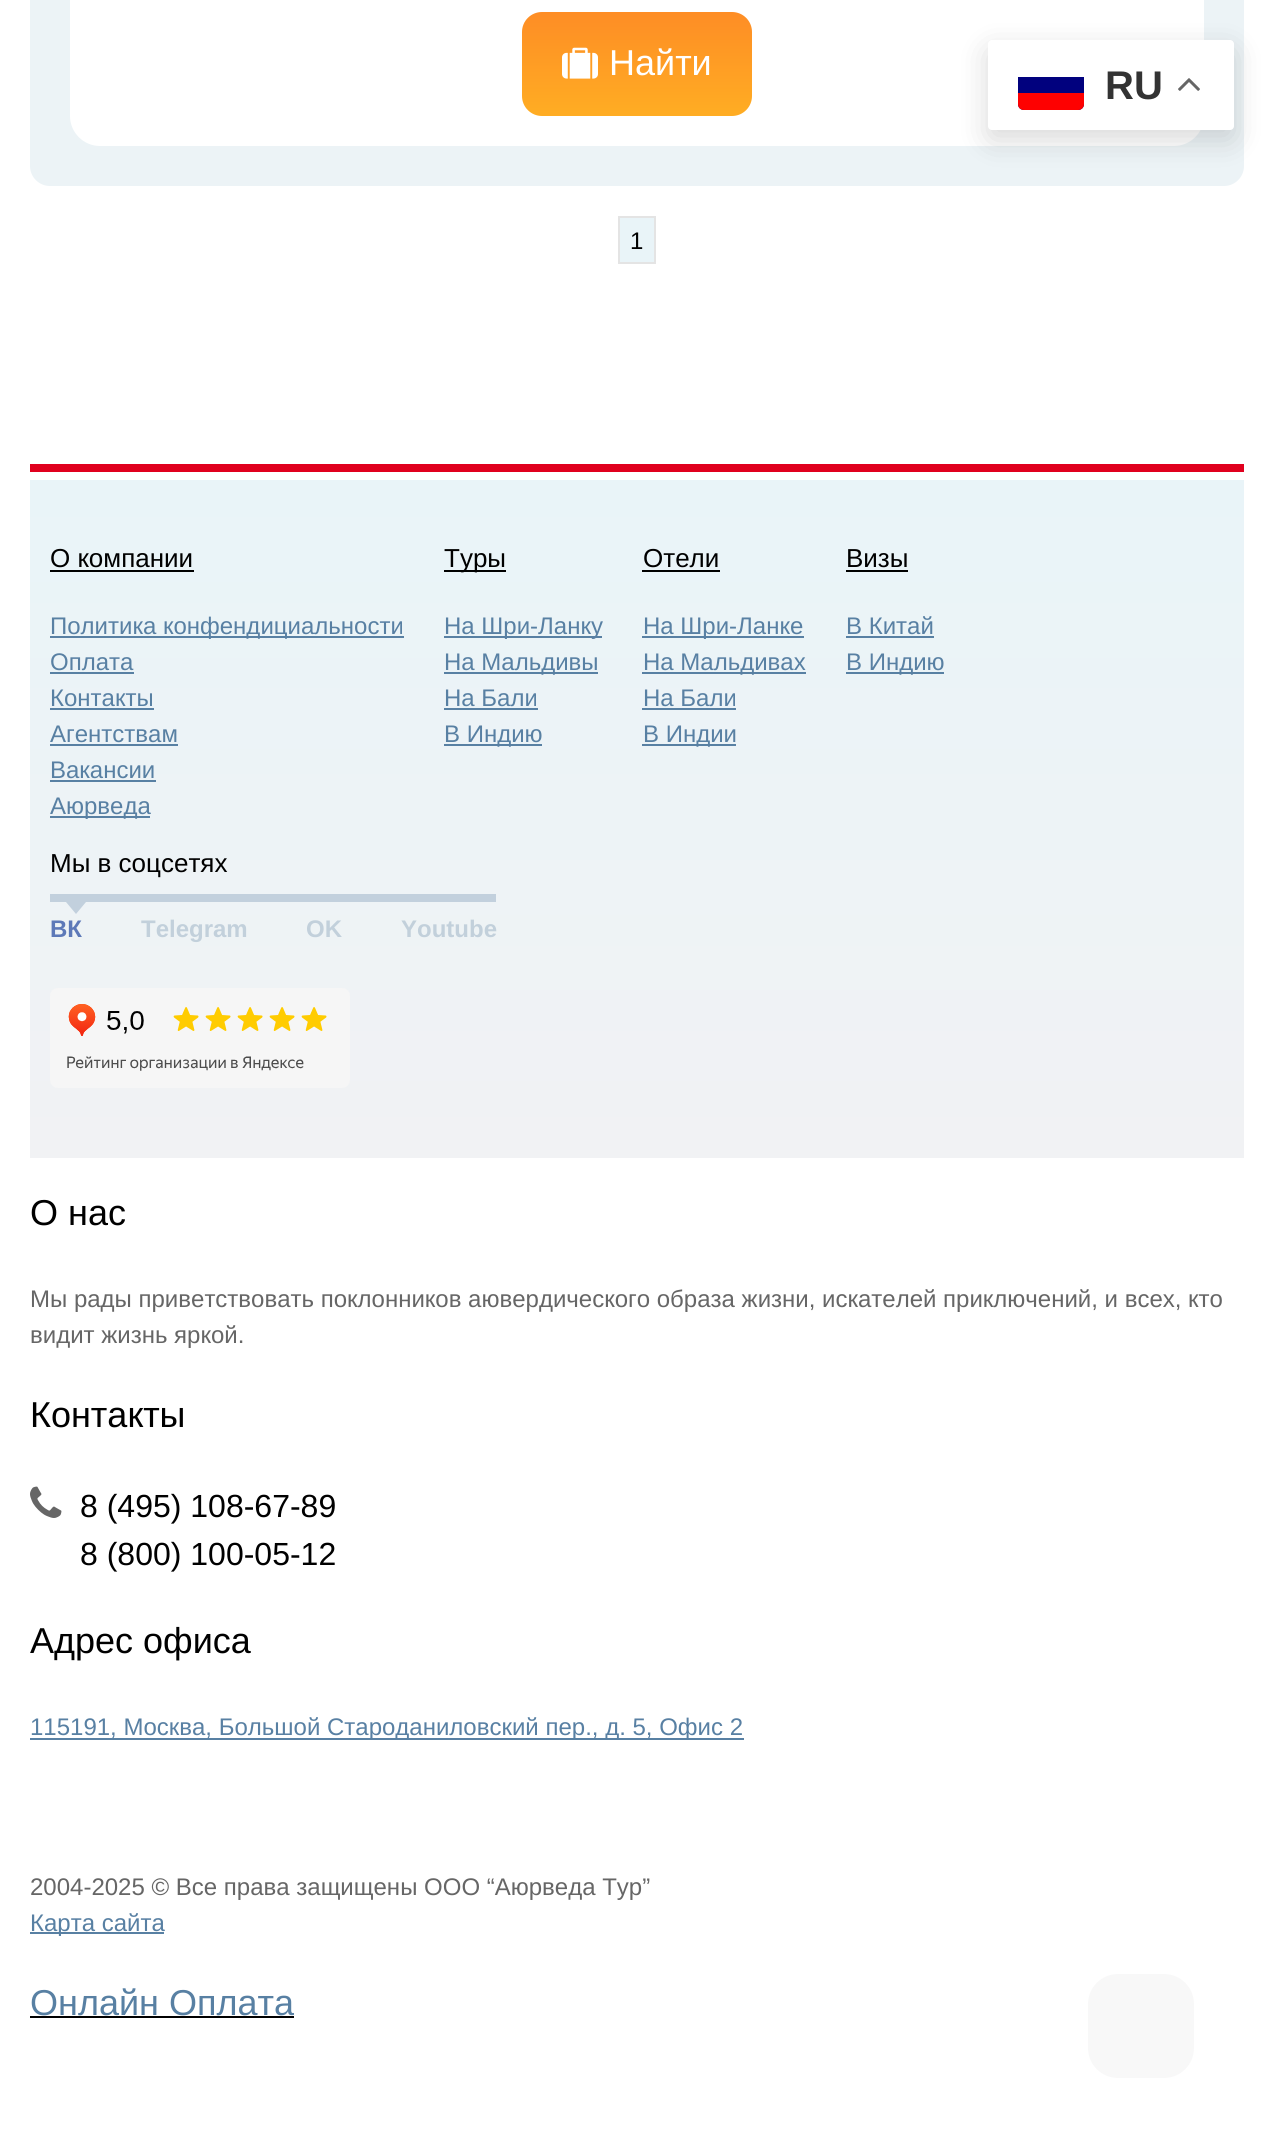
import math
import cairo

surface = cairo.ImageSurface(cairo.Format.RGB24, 1273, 2137)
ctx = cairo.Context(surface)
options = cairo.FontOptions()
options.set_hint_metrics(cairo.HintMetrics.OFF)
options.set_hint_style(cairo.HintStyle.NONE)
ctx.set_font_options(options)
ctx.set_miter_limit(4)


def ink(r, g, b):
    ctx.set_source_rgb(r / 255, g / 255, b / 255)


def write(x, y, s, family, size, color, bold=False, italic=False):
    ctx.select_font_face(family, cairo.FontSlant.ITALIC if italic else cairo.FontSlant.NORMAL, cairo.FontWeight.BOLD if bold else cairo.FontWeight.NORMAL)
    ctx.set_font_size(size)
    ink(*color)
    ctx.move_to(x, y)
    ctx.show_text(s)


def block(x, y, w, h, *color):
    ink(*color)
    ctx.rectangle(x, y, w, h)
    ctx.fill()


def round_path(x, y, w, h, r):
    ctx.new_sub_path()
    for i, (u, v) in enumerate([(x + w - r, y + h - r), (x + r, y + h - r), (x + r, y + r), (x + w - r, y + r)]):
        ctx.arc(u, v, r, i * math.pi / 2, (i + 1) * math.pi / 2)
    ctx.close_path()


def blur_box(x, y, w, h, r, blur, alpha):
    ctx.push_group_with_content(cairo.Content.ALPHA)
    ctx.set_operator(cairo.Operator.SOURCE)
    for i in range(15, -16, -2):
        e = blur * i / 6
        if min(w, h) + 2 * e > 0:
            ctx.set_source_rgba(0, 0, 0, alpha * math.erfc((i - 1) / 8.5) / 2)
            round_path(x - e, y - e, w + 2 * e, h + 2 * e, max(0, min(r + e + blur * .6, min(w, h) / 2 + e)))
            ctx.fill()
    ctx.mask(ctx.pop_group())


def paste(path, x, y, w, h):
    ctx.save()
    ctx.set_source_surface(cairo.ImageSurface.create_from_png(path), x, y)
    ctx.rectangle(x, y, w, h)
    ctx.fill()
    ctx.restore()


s1 = dict(family="Liberation Sans", size=36, color=(255, 255, 255))
s2 = dict(family="Liberation Sans", size=24, color=(0, 0, 0))
s3 = dict(family="Liberation Sans", size=40, color=(51, 51, 51), bold=True)
s4 = dict(family="Liberation Sans", size=26, color=(0, 0, 0))
s5 = dict(family="Liberation Sans", size=24, color=(88, 128, 163))
s6 = dict(family="Liberation Sans", size=24, color=(93, 121, 184), bold=True)
s7 = dict(family="Liberation Sans", size=24, color=(194, 208, 219), bold=True)
s8 = dict(family="Liberation Sans", size=36, color=(0, 0, 0))
s9 = dict(family="Liberation Sans", size=24, color=(102, 102, 102))
s10 = dict(family="Liberation Sans", size=32, color=(0, 0, 0))
s11 = dict(family="Liberation Sans", size=36, color=(88, 128, 163))

ink(255, 255, 255)
ctx.paint()
ink(236, 243, 246)
round_path(30, -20, 1214, 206, 20)
ctx.fill()
ink(255, 255, 255)
ctx.new_path()
ctx.move_to(100, -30)
ctx.line_to(1204, -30)
ctx.line_to(1204, 116)
ctx.curve_to(1204, 132.5, 1190.5, 146, 1174, 146)
ctx.line_to(100, 146)
ctx.curve_to(83.5, 146, 70, 132.5, 70, 116)
ctx.line_to(70, 0)
ctx.curve_to(70, -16.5, 83.5, -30, 100, -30)
ctx.close_path()
ctx.fill()
gradient = cairo.LinearGradient(637, 12, 637, 116)
gradient.add_color_stop_rgba(0, 0.996, 0.553, 0.145, 1)
gradient.add_color_stop_rgba(1, 1, 0.678, 0.137, 1)
ctx.set_source(gradient)
round_path(522, 12, 230, 104, 20)
ctx.fill()
paste("pic1.png", 562, 47, 36, 32)
write(609, 75, "Найти", **s1)
ink(233, 244, 248)
ctx.rectangle(619, 217, 36, 46)
ctx.fill_preserve()
ink(228, 228, 228)
ctx.stroke()
write(630, 249, "1", **s2)
ink(0, 0, 0)
blur_box(988, 50, 246, 90, 4, 15, 0.15)
ink(255, 255, 255)
round_path(988, 40, 246, 90, 4)
ctx.fill()
ink(1, 1, 126)
ctx.new_path()
ctx.move_to(1018, 77)
ctx.line_to(1084, 77)
ctx.line_to(1084, 104)
ctx.curve_to(1084, 107.5, 1081.5, 110, 1078, 110)
ctx.line_to(1024, 110)
ctx.curve_to(1020.5, 110, 1018, 107.5, 1018, 104)
ctx.close_path()
ctx.fill()
ink(254, 1, 1)
ctx.new_path()
ctx.move_to(1018, 93)
ctx.line_to(1084, 93)
ctx.line_to(1084, 104)
ctx.curve_to(1084, 107.5, 1081.5, 110, 1078, 110)
ctx.line_to(1024, 110)
ctx.curve_to(1020.5, 110, 1018, 107.5, 1018, 104)
ctx.close_path()
ctx.fill()
write(1105, 99, "RU", **s3)
paste("pic2.png", 1178, 78, 22, 13)
block(30, 464, 1214, 8, 224, 0, 30)
gradient = cairo.LinearGradient(637, 480, 637, 1158)
gradient.add_color_stop_rgba(0, 0.914, 0.957, 0.973, 1)
gradient.add_color_stop_rgba(1, 0.945, 0.949, 0.957, 1)
ctx.set_source(gradient)
ctx.rectangle(30, 480, 1214, 678)
ctx.fill()
write(50, 567, "О компании", **s4)
block(50, 570, 144, 2, 0, 0, 0)
block(50, 636, 354, 2, 88, 128, 163)
write(50, 634, "Политика конфендициальности", **s5)
write(50, 670, "Оплата", **s5)
block(50, 672, 84, 2, 88, 128, 163)
write(50, 706, "Контакты", **s5)
block(50, 708, 104, 2, 88, 128, 163)
write(50, 742, "Агентствам", **s5)
block(50, 744, 128, 2, 88, 128, 163)
write(50, 778, "Вакансии", **s5)
block(50, 780, 106, 2, 88, 128, 163)
block(50, 816, 100, 2, 88, 128, 163)
write(50, 814, "Аюрведа", **s5)
block(444, 570, 62, 2, 0, 0, 0)
write(444, 567, "Туры", **s4)
block(444, 636, 158, 2, 88, 128, 163)
write(444, 634, "На Шри-Ланку", **s5)
block(444, 672, 154, 2, 88, 128, 163)
write(444, 670, "На Мальдивы", **s5)
write(444, 706, "На Бали", **s5)
block(444, 708, 94, 2, 88, 128, 163)
block(444, 744, 98, 2, 88, 128, 163)
write(444, 742, "В Индию", **s5)
write(643, 567, "Отели", **s4)
block(642, 570, 78, 2, 0, 0, 0)
block(642, 636, 162, 2, 88, 128, 163)
write(643, 634, "На Шри-Ланке", **s5)
block(642, 672, 164, 2, 88, 128, 163)
write(643, 670, "На Мальдивах", **s5)
write(643, 706, "На Бали", **s5)
block(642, 708, 94, 2, 88, 128, 163)
block(642, 744, 94, 2, 88, 128, 163)
write(643, 742, "В Индии", **s5)
write(846, 567, "Визы", **s4)
block(846, 570, 62, 2, 0, 0, 0)
write(846, 634, "В Китай", **s5)
block(846, 636, 88, 2, 88, 128, 163)
block(846, 672, 98, 2, 88, 128, 163)
write(846, 670, "В Индию", **s5)
write(50, 872, "Мы в соцсетях", **s4)
block(50, 894, 446, 8, 194, 208, 221)
ctx.new_path()
ctx.move_to(66, 902)
ctx.line_to(86, 902)
ctx.line_to(76, 914)
ctx.close_path()
ctx.fill()
write(50, 937, "ВК", **s6)
write(141, 937, "Telegram", **s7)
write(306, 937, "OK", **s7)
write(401, 937, "Youtube", **s7)
paste("pic3.png", 50, 988, 300, 100)
write(30, 1225, "О нас", **s8)
write(30, 1307, "Мы рады приветствовать поклонников аювердического образа жизни, искателей приключений, и всех, кто", **s9)
write(30, 1343, "видит жизнь яркой.", **s9)
write(30, 1427, "Контакты", **s8)
paste("pic4.png", 30, 1486, 32, 32)
write(80, 1517, "8 (495) 108-67-89", **s10)
write(80, 1565, "8 (800) 100-05-12", **s10)
write(30, 1653, "Адрес офиса", **s8)
block(30, 1738, 714, 2, 88, 128, 163)
write(30, 1735, "115191, Москва, Большой Староданиловский пер., д. 5, Офис 2", **s5)
write(30, 1895, "2004-2025 © Все права защищены ООО “Аюрведа Тур”", **s9)
block(30, 1932, 134, 2, 88, 128, 163)
write(30, 1931, "Карта сайта", **s5)
write(30, 2015, "Онлайн Оплата", **s11)
block(30, 2016, 264, 2, 0, 0, 0)
ink(248, 248, 248)
round_path(1088, 1974, 106, 104, 30)
ctx.fill()
surface.write_to_png("screenshot.png")
